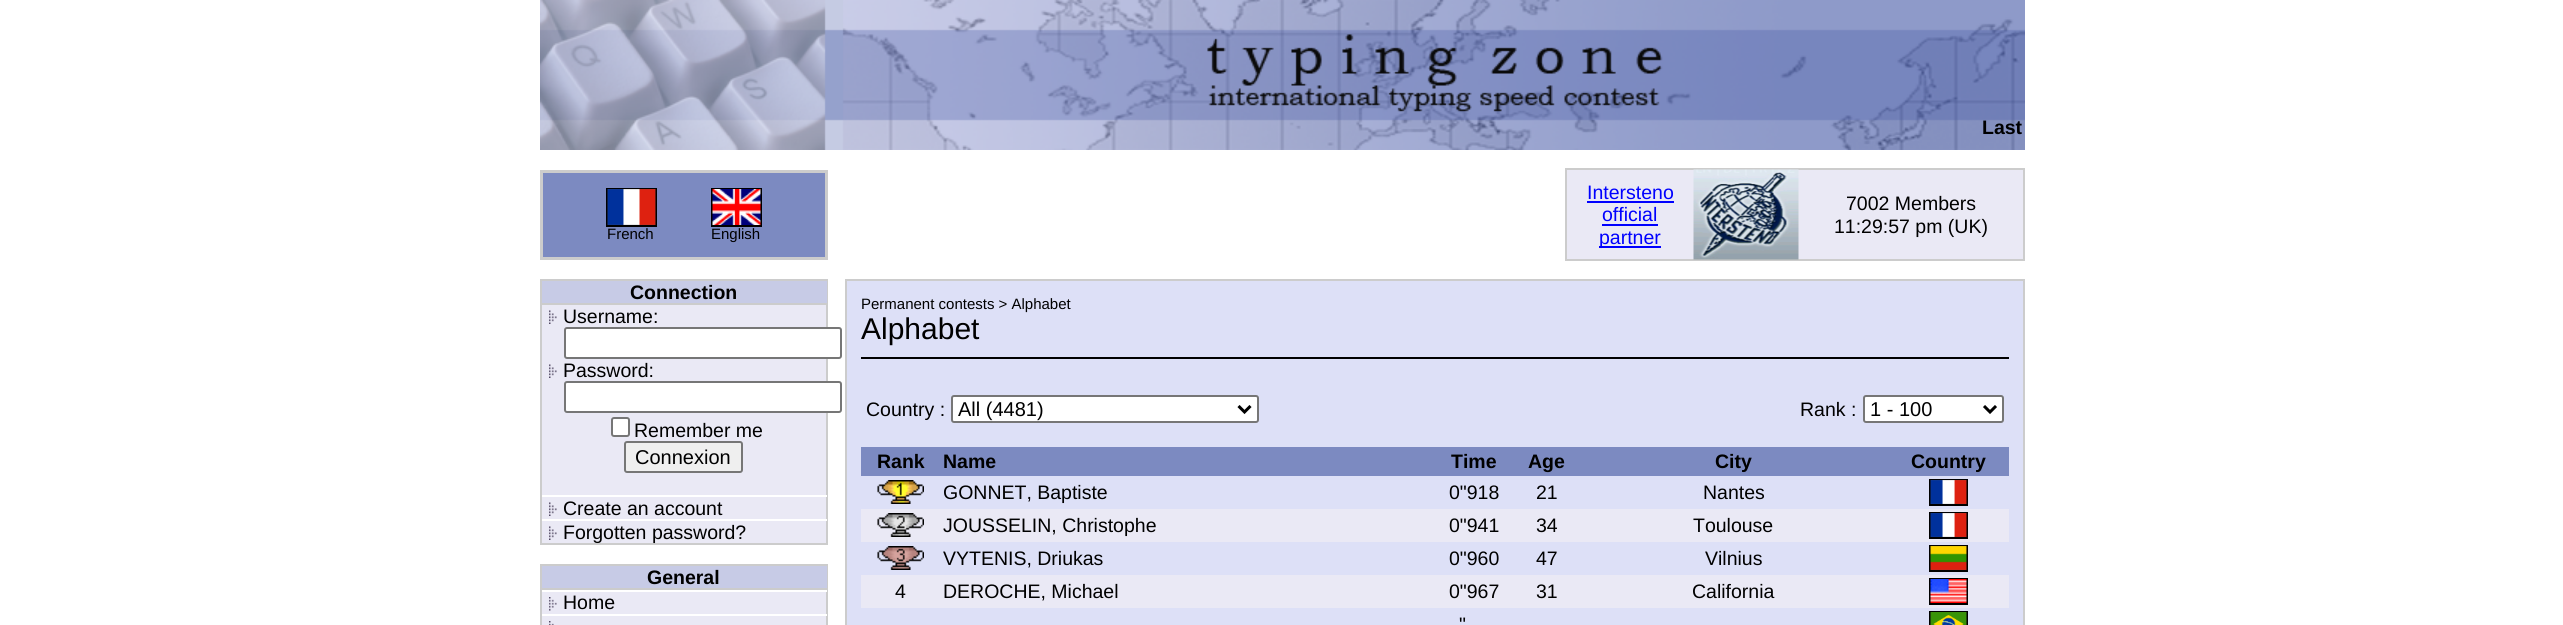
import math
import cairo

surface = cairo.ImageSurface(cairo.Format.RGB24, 2563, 625)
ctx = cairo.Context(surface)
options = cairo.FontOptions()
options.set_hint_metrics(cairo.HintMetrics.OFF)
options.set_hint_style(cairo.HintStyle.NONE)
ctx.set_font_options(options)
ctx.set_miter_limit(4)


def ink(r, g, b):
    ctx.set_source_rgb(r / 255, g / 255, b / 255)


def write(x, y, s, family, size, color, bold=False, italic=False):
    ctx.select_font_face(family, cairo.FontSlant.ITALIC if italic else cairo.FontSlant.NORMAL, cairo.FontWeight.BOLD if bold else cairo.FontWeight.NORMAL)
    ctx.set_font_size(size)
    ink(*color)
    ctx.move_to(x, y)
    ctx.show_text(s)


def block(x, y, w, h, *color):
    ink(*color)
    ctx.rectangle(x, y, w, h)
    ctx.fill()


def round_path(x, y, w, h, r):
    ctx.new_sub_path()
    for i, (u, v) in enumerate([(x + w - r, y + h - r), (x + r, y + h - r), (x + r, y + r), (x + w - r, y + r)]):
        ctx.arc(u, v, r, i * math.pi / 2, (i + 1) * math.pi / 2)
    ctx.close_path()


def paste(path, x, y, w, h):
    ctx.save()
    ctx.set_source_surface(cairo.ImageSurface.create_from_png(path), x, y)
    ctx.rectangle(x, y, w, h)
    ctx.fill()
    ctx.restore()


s1 = dict(family="Liberation Sans", size=19.5, color=(0, 0, 0), bold=True)
s2 = dict(family="Liberation Sans", size=15, color=(0, 0, 0))
s3 = dict(family="Liberation Sans", size=19.5, color=(0, 0, 255))
s4 = dict(family="Liberation Sans", size=19.5, color=(0, 0, 0))
s5 = dict(family="Liberation Sans", size=20, color=(0, 0, 0))
s6 = dict(family="Liberation Sans", size=30, color=(0, 0, 0))

ink(255, 255, 255)
ctx.paint()
paste("pic1.png", 540, 0, 1485, 150)
write(1982, 134, "Last", **s1)
ink(124, 138, 193)
ctx.rectangle(541.5, 171.5, 285, 87)
ctx.fill_preserve()
ink(204, 204, 204)
ctx.set_line_width(3)
ctx.stroke()
ctx.rectangle(607, 189, 49, 37)
ink(0, 0, 0)
ctx.set_line_width(2)
ctx.stroke()
paste("pic2.png", 607, 189, 49, 36)
write(607, 239, "French", **s2)
ctx.rectangle(712, 189, 49, 37)
ctx.stroke()
paste("pic3.png", 712, 189, 49, 36)
write(711, 239, "English", **s2)
ink(234, 233, 245)
ctx.rectangle(1566, 169, 458, 91)
ctx.fill_preserve()
ink(204, 204, 204)
ctx.stroke()
write(1587, 199, "Intersteno", **s3)
block(1587, 201, 87, 2, 0, 0, 255)
write(1602, 221, "official", **s3)
block(1602, 224, 56, 2, 0, 0, 255)
block(1599, 246, 62, 2, 0, 0, 255)
write(1599, 244, "partner", **s3)
paste("pic4.png", 1693, 169, 106, 91)
write(1846, 210, "7002 Members", **s4)
write(1834, 233, "11:29:57 pm (UK)", **s4)
block(542, 305, 284, 238, 234, 233, 245)
ctx.rectangle(541, 280, 286, 264)
ink(204, 204, 204)
ctx.stroke()
block(542, 281, 285, 22, 199, 203, 230)
block(542, 303, 285, 2, 204, 204, 204)
write(630, 299, "Connection", **s1)
paste("pic5.png", 549, 310, 8, 14)
write(563, 323, "Username:", **s4)
ink(255, 255, 255)
round_path(565, 328, 276, 30, 2)
ctx.fill_preserve()
ink(118, 118, 118)
ctx.stroke()
paste("pic5.png", 549, 364, 8, 14)
write(563, 377, "Password:", **s4)
ink(255, 255, 255)
round_path(565, 382, 276, 30, 2)
ctx.fill_preserve()
ink(118, 118, 118)
ctx.stroke()
ink(255, 255, 255)
round_path(612, 418, 17, 18, 2)
ctx.fill_preserve()
ink(118, 118, 118)
ctx.stroke()
write(634, 437, "Remember me", **s4)
ink(239, 239, 239)
round_path(625, 442, 117, 30, 2)
ctx.fill_preserve()
ink(118, 118, 118)
ctx.stroke()
write(635, 464, "Connexion", **s5)
paste("pic5.png", 549, 502, 8, 14)
block(542, 495, 285, 2, 255, 255, 255)
write(563, 515, "Create an account", **s4)
paste("pic5.png", 549, 526, 8, 14)
block(542, 519, 285, 2, 255, 255, 255)
write(563, 539, "Forgotten password?", **s4)
block(542, 592, 284, 33, 234, 233, 245)
ctx.rectangle(541, 565, 286, 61)
ink(204, 204, 204)
ctx.stroke()
block(542, 566, 285, 22, 199, 203, 230)
block(542, 588, 285, 2, 204, 204, 204)
write(647, 584, "General", **s1)
paste("pic6.png", 549, 597, 8, 14)
block(826, 590, 1, 2, 255, 255, 255)
write(563, 609, "Home", **s4)
paste("pic7.png", 549, 621, 5, 4)
block(542, 614, 285, 2, 255, 255, 255)
ink(221, 224, 247)
ctx.rectangle(846, 280, 1178, 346)
ctx.fill_preserve()
ink(204, 204, 204)
ctx.stroke()
write(861, 309, "Permanent contests > Alphabet", **s2)
write(861, 339, "Alphabet", **s6)
block(861, 357, 1148, 2, 0, 0, 0)
write(866, 416, "Country :", **s4)
ink(255, 255, 255)
round_path(952, 396, 306, 26, 2)
ctx.fill_preserve()
ink(118, 118, 118)
ctx.stroke()
ctx.new_path()
ctx.move_to(1238.5, 406)
ctx.line_to(1244.5, 412)
ctx.line_to(1250.5, 406)
ink(0, 0, 0)
ctx.set_line_width(3)
ctx.stroke()
write(958, 416, "All (4481)", **s5)
write(1800, 416, "Rank :", **s4)
ink(255, 255, 255)
round_path(1864, 396, 139, 26, 2)
ctx.fill_preserve()
ink(118, 118, 118)
ctx.set_line_width(2)
ctx.stroke()
ctx.new_path()
ctx.move_to(1984, 406)
ctx.line_to(1990, 412)
ctx.line_to(1996, 406)
ink(0, 0, 0)
ctx.set_line_width(3)
ctx.stroke()
write(1870, 416, "1 - 100", **s5)
block(861, 447, 1148, 29, 124, 138, 193)
write(877, 468, "Rank", **s1)
write(943, 468, "Name", **s1)
write(1451, 468, "Time", **s1)
write(1528, 468, "Age", **s1)
write(1715, 468, "City", **s1)
write(1911, 468, "Country", **s1)
paste("pic8.png", 877, 480, 47, 24)
write(943, 499, "GONNET, Baptiste", **s4)
write(1449, 499, "0\"918", **s4)
write(1536, 499, "21", **s4)
write(1703, 499, "Nantes", **s4)
ctx.rectangle(1930, 480, 37, 25)
ctx.set_line_width(2)
ctx.stroke()
paste("pic9.png", 1930, 480, 37, 24)
block(861, 509, 1148, 33, 234, 233, 245)
paste("pic10.png", 877, 513, 47, 24)
write(943, 532, "JOUSSELIN, Christophe", **s4)
write(1449, 532, "0\"941", **s4)
write(1536, 532, "34", **s4)
write(1693, 532, "Toulouse", **s4)
ctx.rectangle(1930, 513, 37, 25)
ctx.stroke()
paste("pic9.png", 1930, 513, 37, 24)
paste("pic11.png", 877, 546, 47, 24)
write(943, 565, "VYTENIS, Driukas", **s4)
write(1449, 565, "0\"960", **s4)
write(1536, 565, "47", **s4)
write(1705, 565, "Vilnius", **s4)
ctx.rectangle(1930, 546, 37, 25)
ctx.stroke()
paste("pic12.png", 1930, 546, 37, 24)
block(861, 575, 1148, 33, 234, 233, 245)
write(895, 598, "4", **s4)
write(943, 598, "DEROCHE, Michael", **s4)
write(1449, 598, "0\"967", **s4)
write(1536, 598, "31", **s4)
write(1692, 598, "California", **s4)
ctx.rectangle(1930, 579, 37, 25)
ctx.stroke()
paste("pic13.png", 1930, 579, 37, 24)
write(1459, 631, "\"", **s4)
ctx.rectangle(1930, 612, 37, 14)
ctx.stroke()
paste("pic14.png", 1930, 612, 37, 13)
surface.write_to_png("screenshot.png")
